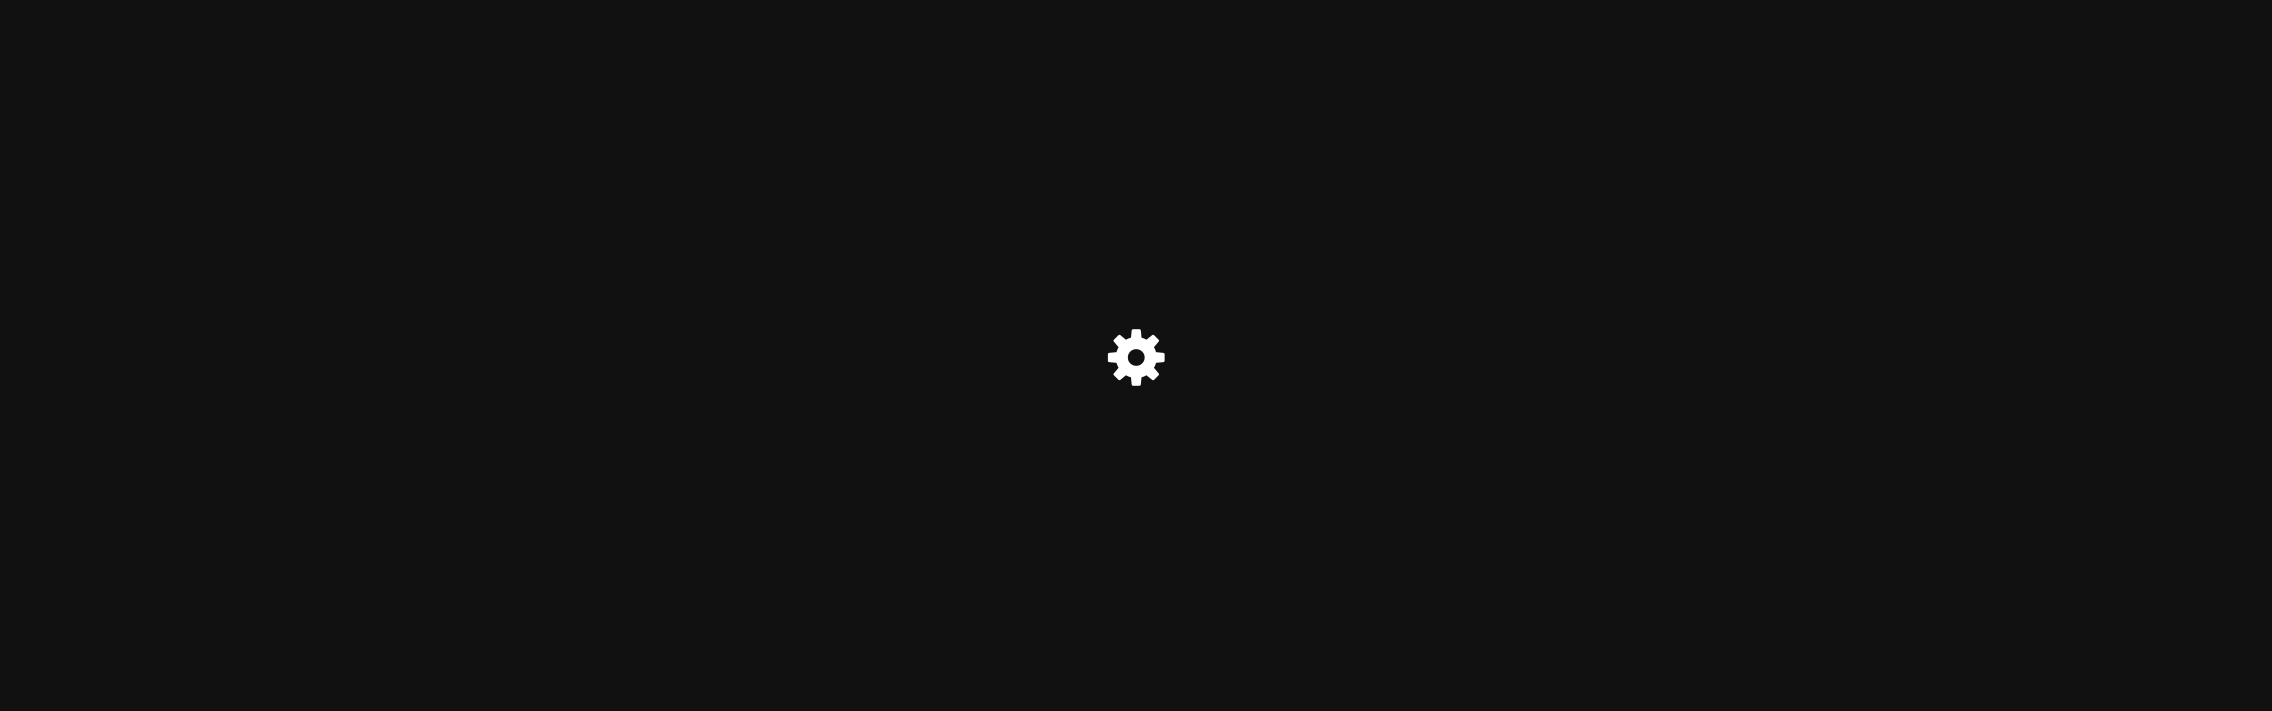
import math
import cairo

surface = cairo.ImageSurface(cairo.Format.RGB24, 2272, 711)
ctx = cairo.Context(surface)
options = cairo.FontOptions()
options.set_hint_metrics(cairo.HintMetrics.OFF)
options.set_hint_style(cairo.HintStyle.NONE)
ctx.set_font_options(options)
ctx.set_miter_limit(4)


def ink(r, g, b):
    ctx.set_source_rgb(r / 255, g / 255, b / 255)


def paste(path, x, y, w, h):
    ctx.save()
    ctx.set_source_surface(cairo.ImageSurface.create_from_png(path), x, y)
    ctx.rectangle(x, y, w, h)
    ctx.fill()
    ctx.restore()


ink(17, 17, 17)
ctx.paint()
paste("pic1.png", 1107, 329, 58, 57)
surface.write_to_png("screenshot.png")
